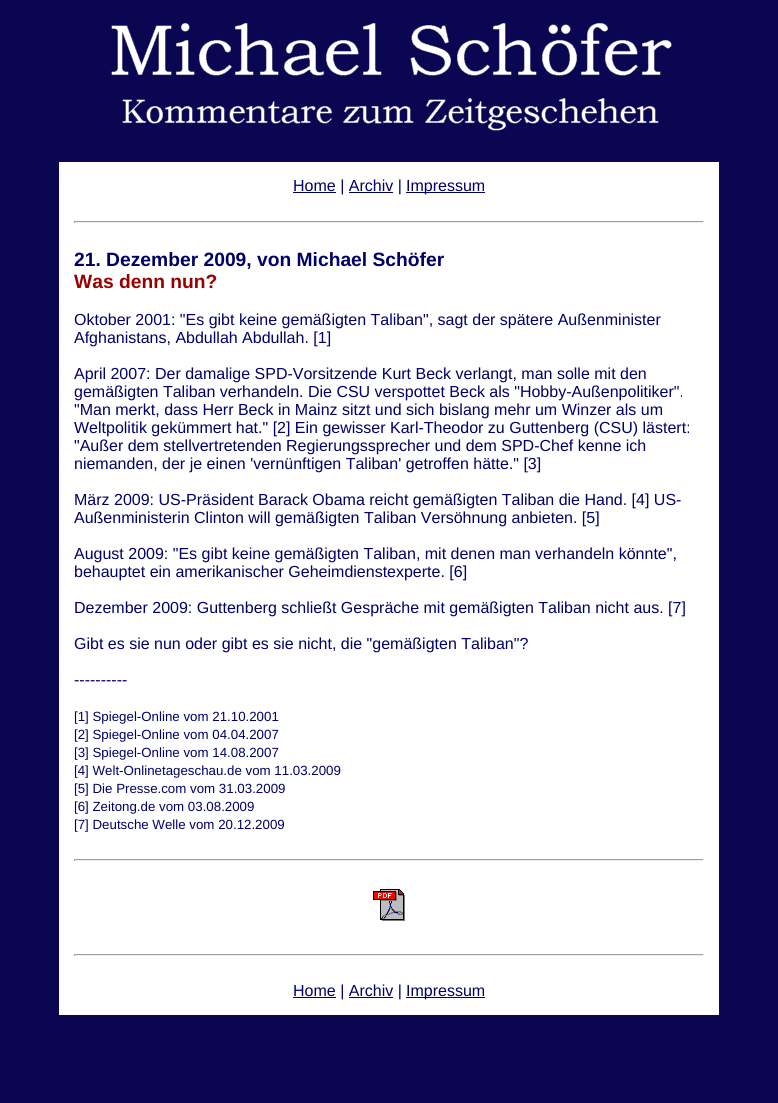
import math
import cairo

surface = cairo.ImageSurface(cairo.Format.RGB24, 778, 1103)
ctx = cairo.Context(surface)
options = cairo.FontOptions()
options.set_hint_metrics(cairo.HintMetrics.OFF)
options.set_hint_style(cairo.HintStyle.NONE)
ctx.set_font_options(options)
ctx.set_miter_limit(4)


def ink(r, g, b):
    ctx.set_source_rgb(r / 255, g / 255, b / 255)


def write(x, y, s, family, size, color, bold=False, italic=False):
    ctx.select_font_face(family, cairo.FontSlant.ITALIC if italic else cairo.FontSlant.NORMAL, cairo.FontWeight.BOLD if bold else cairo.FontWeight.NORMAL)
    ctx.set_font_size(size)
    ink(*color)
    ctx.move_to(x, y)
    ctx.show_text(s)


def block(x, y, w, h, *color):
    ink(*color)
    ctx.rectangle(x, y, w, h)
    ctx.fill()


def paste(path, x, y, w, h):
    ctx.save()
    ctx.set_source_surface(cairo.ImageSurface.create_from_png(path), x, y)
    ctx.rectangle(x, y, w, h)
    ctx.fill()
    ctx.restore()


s1 = dict(family="Liberation Sans", size=16, color=(0, 0, 102))
s2 = dict(family="Liberation Sans", size=19.25, color=(0, 0, 102), bold=True)
s3 = dict(family="Liberation Sans", size=19.25, color=(153, 0, 0), bold=True)
s4 = dict(family="Liberation Sans", size=13.3, color=(0, 0, 102))

ink(10, 6, 82)
ctx.paint()
paste("pic1.png", 111, 23, 561, 108)
block(59, 162, 660, 853, 255, 255, 255)
block(293, 192, 43, 1, 0, 0, 102)
write(293, 191, "Home | Archiv |", **s1)
block(349, 192, 44, 1, 0, 0, 102)
block(406, 192, 79, 1, 0, 0, 102)
write(406, 191, "Impressum", **s1)
block(74, 221, 630, 1, 159, 159, 159)
block(703, 221, 1, 2, 238, 238, 238)
block(74, 222, 630, 1, 238, 238, 238)
block(74, 221, 1, 2, 159, 159, 159)
write(74, 266, "21. Dezember 2009, von Michael Schöfer", **s2)
write(74, 288, "Was denn nun?", **s3)
write(74, 325, "Oktober 2001: \"Es gibt keine gemäßigten Taliban\", sagt der spätere Außenminister", **s1)
write(74, 343, "Afghanistans, Abdullah Abdullah. [1]", **s1)
write(74, 379, "April 2007: Der damalige SPD-Vorsitzende Kurt Beck verlangt, man solle mit den", **s1)
write(74, 397, "gemäßigten Taliban verhandeln. Die CSU verspottet Beck als \"Hobby-Außenpolitiker\".", **s1)
write(74, 415, "\"Man merkt, dass Herr Beck in Mainz sitzt und sich bislang mehr um Winzer als um", **s1)
write(74, 433, "Weltpolitik gekümmert hat.\" [2] Ein gewisser Karl-Theodor zu Guttenberg (CSU) lästert:", **s1)
write(74, 451, "\"Außer dem stellvertretenden Regierungssprecher und dem SPD-Chef kenne ich", **s1)
write(74, 469, "niemanden, der je einen 'vernünftigen Taliban' getroffen hätte.\" [3]", **s1)
write(74, 505, "März 2009: US-Präsident Barack Obama reicht gemäßigten Taliban die Hand. [4] US-", **s1)
write(74, 523, "Außenministerin Clinton will gemäßigten Taliban Versöhnung anbieten. [5]", **s1)
write(74, 559, "August 2009: \"Es gibt keine gemäßigten Taliban, mit denen man verhandeln könnte\",", **s1)
write(74, 577, "behauptet ein amerikanischer Geheimdienstexperte. [6]", **s1)
write(74, 613, "Dezember 2009: Guttenberg schließt Gespräche mit gemäßigten Taliban nicht aus. [7]", **s1)
write(74, 649, "Gibt es sie nun oder gibt es sie nicht, die \"gemäßigten Taliban\"?", **s1)
write(74, 685, "----------", **s1)
write(74, 721, "[1] Spiegel-Online vom 21.10.2001", **s4)
write(74, 739, "[2] Spiegel-Online vom 04.04.2007", **s4)
write(74, 757, "[3] Spiegel-Online vom 14.08.2007", **s4)
write(74, 775, "[4] Welt-Onlinetageschau.de vom 11.03.2009", **s4)
write(74, 793, "[5] Die Presse.com vom 31.03.2009", **s4)
write(74, 811, "[6] Zeitong.de vom 03.08.2009", **s4)
write(74, 829, "[7] Deutsche Welle vom 20.12.2009", **s4)
block(74, 859, 630, 1, 159, 159, 159)
block(703, 859, 1, 2, 238, 238, 238)
block(74, 860, 630, 1, 238, 238, 238)
block(74, 859, 1, 2, 159, 159, 159)
paste("pic2.png", 373, 889, 32, 32)
block(74, 954, 630, 1, 159, 159, 159)
block(703, 954, 1, 2, 238, 238, 238)
block(74, 955, 630, 1, 238, 238, 238)
block(74, 954, 1, 2, 159, 159, 159)
block(293, 997, 43, 1, 0, 0, 102)
write(293, 996, "Home | Archiv |", **s1)
block(349, 997, 44, 1, 0, 0, 102)
block(406, 997, 79, 1, 0, 0, 102)
write(406, 996, "Impressum", **s1)
surface.write_to_png("screenshot.png")
